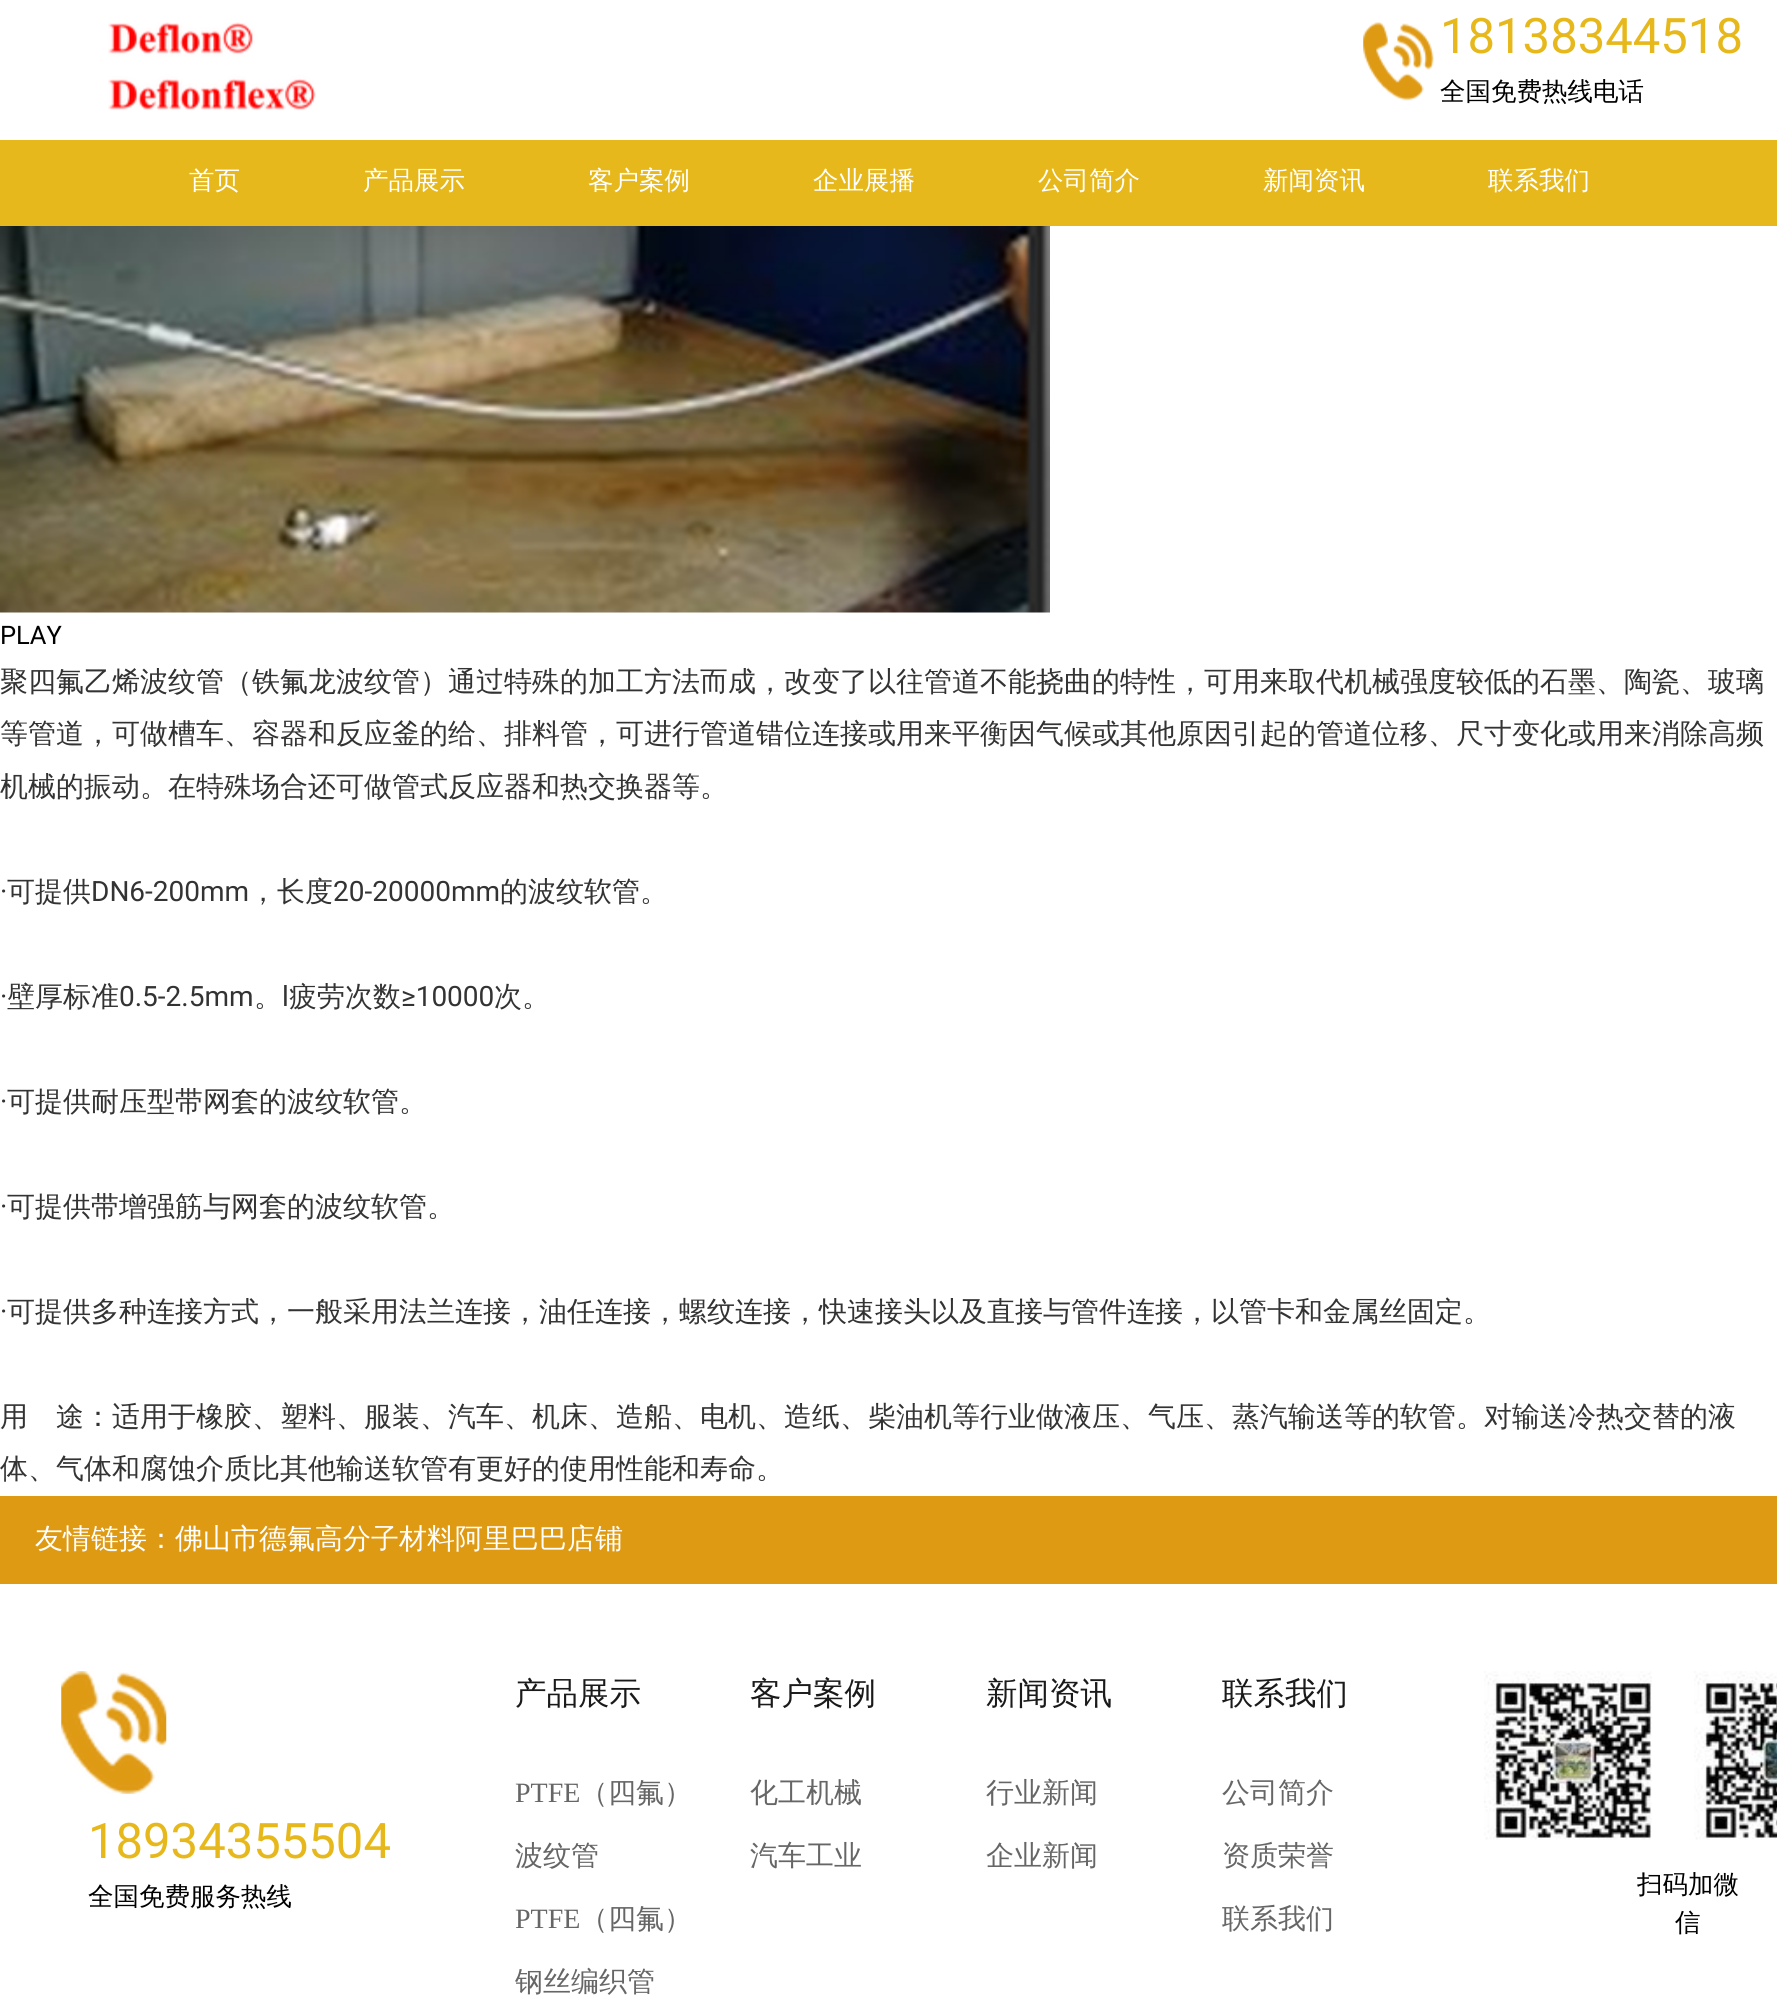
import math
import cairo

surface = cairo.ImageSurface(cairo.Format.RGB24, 1777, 2006)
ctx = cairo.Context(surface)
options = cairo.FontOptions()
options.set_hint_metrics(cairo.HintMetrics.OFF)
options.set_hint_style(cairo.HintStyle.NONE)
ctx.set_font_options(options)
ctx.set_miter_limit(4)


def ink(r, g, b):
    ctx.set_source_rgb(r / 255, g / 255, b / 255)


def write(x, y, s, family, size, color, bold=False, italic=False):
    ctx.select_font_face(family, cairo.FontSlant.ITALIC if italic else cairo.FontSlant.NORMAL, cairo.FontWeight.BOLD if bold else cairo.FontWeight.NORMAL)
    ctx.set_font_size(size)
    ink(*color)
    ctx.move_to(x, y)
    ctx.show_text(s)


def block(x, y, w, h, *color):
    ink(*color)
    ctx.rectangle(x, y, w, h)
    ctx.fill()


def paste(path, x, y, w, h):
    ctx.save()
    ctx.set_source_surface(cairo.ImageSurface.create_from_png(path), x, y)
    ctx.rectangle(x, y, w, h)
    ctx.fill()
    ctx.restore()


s1 = dict(family="Roboto", size=49, color=(231, 184, 27))
s2 = dict(family="WenQuanYi Zen Hei Medium", size=25.5, color=(0, 0, 0))
s3 = dict(family="WenQuanYi Zen Hei Medium", size=25.5, color=(255, 255, 255))
s4 = dict(family="Roboto", size=25.5, color=(0, 0, 0))
s5 = dict(family="WenQuanYi Zen Hei Medium", size=28, color=(51, 51, 51))
s6 = dict(family="Roboto", size=28, color=(51, 51, 51))
s7 = dict(family="WenQuanYi Zen Hei Medium", size=28, color=(255, 255, 255))
s8 = dict(family="WenQuanYi Zen Hei Medium", size=31.5, color=(26, 26, 26))
s9 = dict(family="Liberation Serif", size=28, color=(102, 102, 102))
s10 = dict(family="WenQuanYi Zen Hei Medium", size=28, color=(102, 102, 102))

ink(255, 255, 255)
ctx.paint()
paste("pic1.png", 108, 22, 208, 88)
paste("pic2.png", 1363, 22, 71, 79)
write(1440, 53, "18138344518", **s1)
write(1440, 100, "全国免费热线电话", **s2)
block(0, 140, 1777, 86, 231, 184, 27)
write(189, 189, "首页", **s3)
write(363, 189, "产品展示", **s3)
write(588, 189, "客户案例", **s3)
write(813, 189, "企业展播", **s3)
write(1038, 189, "公司简介", **s3)
write(1263, 189, "新闻资讯", **s3)
write(1488, 189, "联系我们", **s3)
paste("pic3.png", 0, 226, 1050, 387)
write(0, 644, "PLAY", **s4)
write(0, 691, "聚四氟乙烯波纹管（铁氟龙波纹管）通过特殊的加工方法而成，改变了以往管道不能挠曲的特性，可用来取代机械强度较低的石墨、陶瓷、玻璃", **s5)
write(0, 743, "等管道，可做槽车、容器和反应釜的给、排料管，可进行管道错位连接或用来平衡因气候或其他原因引起的管道位移、尺寸变化或用来消除高频", **s5)
write(0, 796, "机械的振动。在特殊场合还可做管式反应器和热交换器等。", **s5)
write(0, 901, "·", **s6)
write(7, 901, "可提供", **s5)
write(91, 901, "DN6-200mm", **s6)
write(249, 901, "，长度", **s5)
write(333, 901, "20-20000mm", **s6)
write(500, 901, "的波纹软管。", **s5)
write(0, 1006, "·", **s6)
write(7, 1006, "壁厚标准", **s5)
write(119, 1006, "0.5-2.5mm", **s6)
write(282, 1006, "l", **s6)
write(289, 1006, "疲劳次数", **s5)
write(401, 1006, "≥10000", **s6)
write(494, 1006, "次。", **s5)
write(254, 1006, "。", **s5)
write(0, 1111, "·", **s6)
write(7, 1111, "可提供耐压型带网套的波纹软管。", **s5)
write(0, 1216, "·", **s6)
write(7, 1216, "可提供带增强筋与网套的波纹软管。", **s5)
write(0, 1321, "·", **s6)
write(7, 1321, "可提供多种连接方式，一般采用法兰连接，油任连接，螺纹连接，快速接头以及直接与管件连接，以管卡和金属丝固定。", **s5)
write(0, 1426, "用", **s5)
write(56, 1426, "途：适用于橡胶、塑料、服装、汽车、机床、造船、电机、造纸、柴油机等行业做液压、气压、蒸汽输送等的软管。对输送冷热交替的液", **s5)
write(0, 1478, "体、气体和腐蚀介质比其他输送软管有更好的使用性能和寿命。", **s5)
block(0, 1496, 1777, 88, 223, 154, 20)
write(35, 1548, "友情链接：佛山市德氟高分子材料阿里巴巴店铺", **s7)
paste("pic4.png", 61, 1671, 106, 123)
write(88, 1858, "18934355504", **s1)
write(88, 1905, "全国免费服务热线", **s2)
write(515, 1704, "产品展示", **s8)
write(515, 1802, "PTFE", **s9)
write(580, 1802, "（四氟）", **s10)
write(515, 1865, "波纹管", **s10)
write(515, 1928, "PTFE", **s9)
write(580, 1928, "（四氟）", **s10)
write(515, 1991, "钢丝编织管", **s10)
write(750, 1704, "客户案例", **s8)
write(750, 1802, "化工机械", **s10)
write(750, 1865, "汽车工业", **s10)
write(986, 1704, "新闻资讯", **s8)
write(986, 1802, "行业新闻", **s10)
write(986, 1865, "企业新闻", **s10)
write(1222, 1704, "联系我们", **s8)
write(1222, 1802, "公司简介", **s10)
write(1222, 1865, "资质荣誉", **s10)
write(1222, 1928, "联系我们", **s10)
paste("pic5.png", 1694, 1671, 83, 169)
paste("pic6.png", 1484, 1671, 168, 169)
write(1637, 1893, "扫码加微", **s2)
write(1675, 1931, "信", **s2)
surface.write_to_png("screenshot.png")
